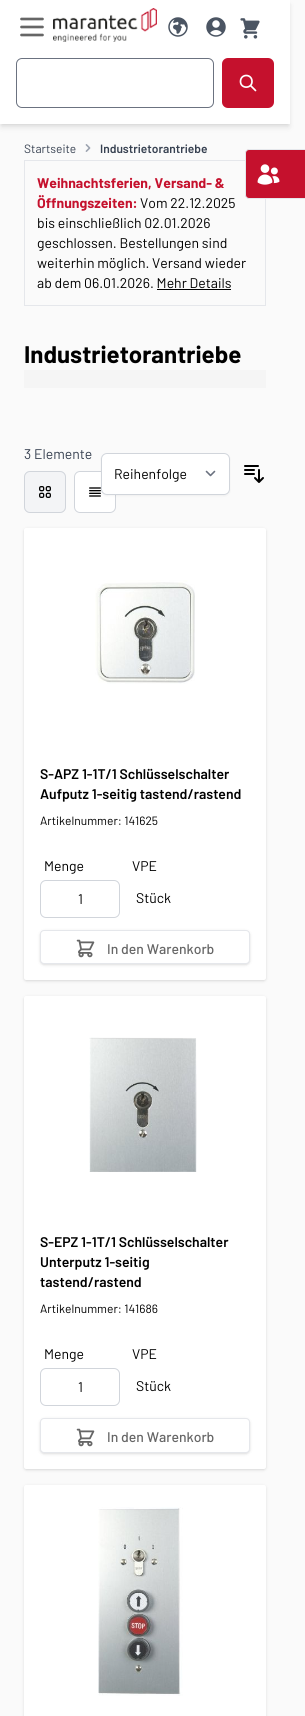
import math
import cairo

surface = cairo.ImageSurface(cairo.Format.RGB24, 305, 1716)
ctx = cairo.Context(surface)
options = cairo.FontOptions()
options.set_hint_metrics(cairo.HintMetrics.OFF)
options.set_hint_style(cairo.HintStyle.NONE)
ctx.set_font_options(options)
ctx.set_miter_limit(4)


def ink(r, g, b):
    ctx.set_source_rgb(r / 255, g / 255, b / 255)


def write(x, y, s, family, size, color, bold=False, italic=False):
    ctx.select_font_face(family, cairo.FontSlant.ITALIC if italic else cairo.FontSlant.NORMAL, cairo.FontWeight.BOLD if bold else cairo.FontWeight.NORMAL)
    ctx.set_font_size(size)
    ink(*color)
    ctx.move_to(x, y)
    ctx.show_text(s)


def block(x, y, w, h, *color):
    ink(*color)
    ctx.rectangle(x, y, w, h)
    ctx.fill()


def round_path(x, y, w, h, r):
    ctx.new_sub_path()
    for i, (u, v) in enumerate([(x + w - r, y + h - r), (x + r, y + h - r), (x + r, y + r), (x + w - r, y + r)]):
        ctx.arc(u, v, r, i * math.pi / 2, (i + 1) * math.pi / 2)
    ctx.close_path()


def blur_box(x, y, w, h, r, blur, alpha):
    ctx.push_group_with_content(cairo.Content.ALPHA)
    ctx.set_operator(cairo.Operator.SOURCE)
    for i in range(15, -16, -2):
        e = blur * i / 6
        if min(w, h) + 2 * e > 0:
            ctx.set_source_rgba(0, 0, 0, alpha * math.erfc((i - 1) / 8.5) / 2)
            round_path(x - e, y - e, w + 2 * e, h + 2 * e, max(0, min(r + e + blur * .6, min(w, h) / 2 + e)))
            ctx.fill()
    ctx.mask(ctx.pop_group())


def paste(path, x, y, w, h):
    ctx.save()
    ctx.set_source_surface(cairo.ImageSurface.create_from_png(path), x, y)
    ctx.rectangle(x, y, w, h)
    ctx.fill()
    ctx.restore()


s1 = dict(family="Barlow", size=12, color=(55, 65, 81))
s2 = dict(family="Barlow SemiBold", size=12, color=(55, 65, 81))
s3 = dict(family="Barlow", size=14, color=(197, 17, 45), bold=True)
s4 = dict(family="Barlow", size=14, color=(0, 0, 0))
s5 = dict(family="Barlow", size=24, color=(0, 0, 0), bold=True)
s6 = dict(family="Barlow", size=14, color=(55, 65, 81))
s7 = dict(family="Barlow SemiBold", size=14, color=(0, 0, 0))
s8 = dict(family="Barlow", size=12, color=(0, 0, 0))
s9 = dict(family="Barlow Medium", size=14, color=(102, 102, 102))

ink(250, 250, 250)
ctx.paint()
ink(0, 0, 0)
blur_box(2, 4, 286, 120, 0, 2, 0.1)
blur_box(1, 5, 288, 122, 0, 3, 0.1)
block(0, 0, 290, 124, 255, 255, 255)
ctx.new_path()
ctx.move_to(21.5, 19)
ctx.line_to(42.5, 19)
ctx.move_to(21.5, 27)
ctx.line_to(42.5, 27)
ctx.move_to(21.5, 35)
ctx.line_to(42.5, 35)
ink(102, 102, 102)
ctx.set_line_width(2.7)
ctx.set_line_cap(cairo.LineCap.ROUND)
ctx.set_line_join(cairo.LineJoin.ROUND)
ctx.stroke()
paste("pic1.png", 53, 8, 104, 34)
paste("pic2.png", 168, 17, 20, 20)
paste("pic3.png", 206, 17, 20, 20)
paste("pic4.png", 240, 18, 20, 21)
round_path(16.5, 58.5, 197, 49, 5.5)
ink(107, 114, 128)
ctx.set_line_width(1)
ctx.set_line_cap(cairo.LineCap.BUTT)
ctx.set_line_join(cairo.LineJoin.MITER)
ctx.stroke()
ink(197, 17, 45)
round_path(222, 58, 52, 50, 6)
ctx.fill()
ctx.new_path()
ctx.move_to(255.5, 90.5)
ctx.line_to(250.5, 85.5)
ctx.move_to(252, 81.5)
ctx.curve_to(252, 89, 240.5, 89, 240.5, 81.5)
ctx.curve_to(240.5, 73.5, 252, 73.5, 252, 81.5)
ctx.close_path()
ink(255, 255, 255)
ctx.set_line_width(1.7)
ctx.set_line_cap(cairo.LineCap.ROUND)
ctx.set_line_join(cairo.LineJoin.ROUND)
ctx.stroke()
write(24, 153, "Startseite", **s1)
paste("pic5.png", 85, 144, 6, 8)
write(100, 153, "Industrietorantriebe", **s2)
ctx.rectangle(24.5, 160.5, 241, 145)
ink(229, 231, 235)
ctx.set_line_width(1)
ctx.set_line_cap(cairo.LineCap.BUTT)
ctx.set_line_join(cairo.LineJoin.MITER)
ctx.stroke()
ink(197, 17, 45)
round_path(245.5, 149.5, 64, 49, 3.5)
ctx.fill_preserve()
ink(229, 231, 235)
ctx.stroke()
paste("pic6.png", 257, 164, 23, 21)
write(37, 188, "Weihnachtsferien, Versand- &", **s3)
write(37, 208, "Öffnungszeiten:", **s3)
write(140, 208, "Vom 22.12.2025", **s4)
write(37, 228, "bis einschließlich 02.01.2026", **s4)
write(37, 248, "geschlossen. Bestellungen sind", **s4)
write(37, 268, "weiterhin möglich. Versand wieder", **s4)
write(37, 288, "ab dem 06.01.2026. Mehr Details", **s4)
block(157, 289, 74, 1, 0, 0, 0)
write(24, 363, "Industrietorantriebe", **s5)
block(24, 370, 242, 18, 245, 245, 245)
write(24, 459, "3 Elemente", **s6)
ink(243, 244, 246)
round_path(24, 471, 42, 42, 6)
ctx.fill()
paste("pic7.png", 39, 486, 12, 12)
round_path(24.5, 471.5, 41, 41, 5.5)
ink(209, 213, 219)
ctx.stroke()
ink(255, 255, 255)
round_path(74, 471, 42, 42, 6)
ctx.fill()
paste("pic8.png", 89, 487, 12, 10)
round_path(74.5, 471.5, 41, 41, 5.5)
ink(209, 213, 219)
ctx.stroke()
ink(0, 0, 0)
blur_box(101, 454, 129, 42, 6, 1, 0.05)
ink(255, 255, 255)
round_path(101, 453, 129, 42, 6)
ctx.fill()
ctx.new_path()
ctx.move_to(206.5, 471.5)
ctx.line_to(210.5, 475.5)
ctx.line_to(214.5, 471.5)
ink(107, 114, 128)
ctx.set_line_width(1.6)
ctx.set_line_cap(cairo.LineCap.ROUND)
ctx.set_line_join(cairo.LineJoin.ROUND)
ctx.stroke()
round_path(101.5, 453.5, 128, 41, 5.5)
ink(209, 213, 219)
ctx.set_line_width(1)
ctx.set_line_cap(cairo.LineCap.BUTT)
ctx.set_line_join(cairo.LineJoin.MITER)
ctx.stroke()
write(114, 479, "Reihenfolge", **s4)
paste("pic9.png", 244, 465, 20, 18)
ink(0, 0, 0)
blur_box(25, 530, 240, 450, 1, 1, 0.1)
blur_box(24, 529, 242, 452, 2, 1.5, 0.1)
ink(255, 255, 255)
round_path(24, 528, 242, 452, 2)
ctx.fill()
paste("pic10.png", 95, 580, 100, 104)
write(40, 779, "S-APZ 1-1T/1 Schlüsselschalter", **s7)
write(40, 799, "Aufputz 1-seitig tastend/rastend", **s7)
write(40, 825, "Artikelnummer: 141625", **s8)
write(44, 871, "Menge", **s4)
round_path(40.5, 880.5, 79, 37, 5.5)
ink(209, 213, 219)
ctx.stroke()
write(78, 904, "1", **s4)
write(132, 871, "VPE", **s4)
write(136, 903, "Stück", **s4)
ink(0, 0, 0)
blur_box(41, 932, 208, 32, 3, 1, 0.1)
blur_box(40, 931, 210, 34, 4, 1.5, 0.1)
ink(255, 255, 255)
round_path(40.5, 930.5, 209, 33, 3.5)
ctx.fill_preserve()
ink(229, 231, 235)
ctx.stroke()
paste("pic11.png", 76, 939, 19, 19)
write(107, 954, "In den Warenkorb", **s9)
ink(0, 0, 0)
blur_box(25, 998, 240, 471, 1, 1, 0.1)
blur_box(24, 997, 242, 473, 2, 1.5, 0.1)
ink(255, 255, 255)
round_path(24, 996, 242, 473, 2)
ctx.fill()
paste("pic12.png", 89, 1037, 108, 135)
write(40, 1247, "S-EPZ 1-1T/1 Schlüsselschalter", **s7)
write(40, 1267, "Unterputz 1-seitig", **s7)
write(40, 1287, "tastend/rastend", **s7)
write(40, 1313, "Artikelnummer: 141686", **s8)
write(44, 1359, "Menge", **s4)
round_path(40.5, 1368.5, 79, 37, 5.5)
ink(209, 213, 219)
ctx.stroke()
write(78, 1392, "1", **s4)
write(132, 1359, "VPE", **s4)
write(136, 1391, "Stück", **s4)
ink(0, 0, 0)
blur_box(41, 1420, 208, 33, 3, 1, 0.1)
blur_box(40, 1419, 210, 35, 4, 1.5, 0.1)
ink(255, 255, 255)
round_path(40.5, 1418.5, 209, 34, 3.5)
ctx.fill_preserve()
ink(229, 231, 235)
ctx.stroke()
paste("pic11.png", 76, 1428, 19, 19)
write(107, 1442, "In den Warenkorb", **s9)
ink(0, 0, 0)
blur_box(24, 1486, 242, 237, 2, 1.5, 0.1)
ink(255, 255, 255)
round_path(24, 1485, 242, 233, 2)
ctx.fill()
paste("pic13.png", 98, 1507, 85, 189)
surface.write_to_png("screenshot.png")
